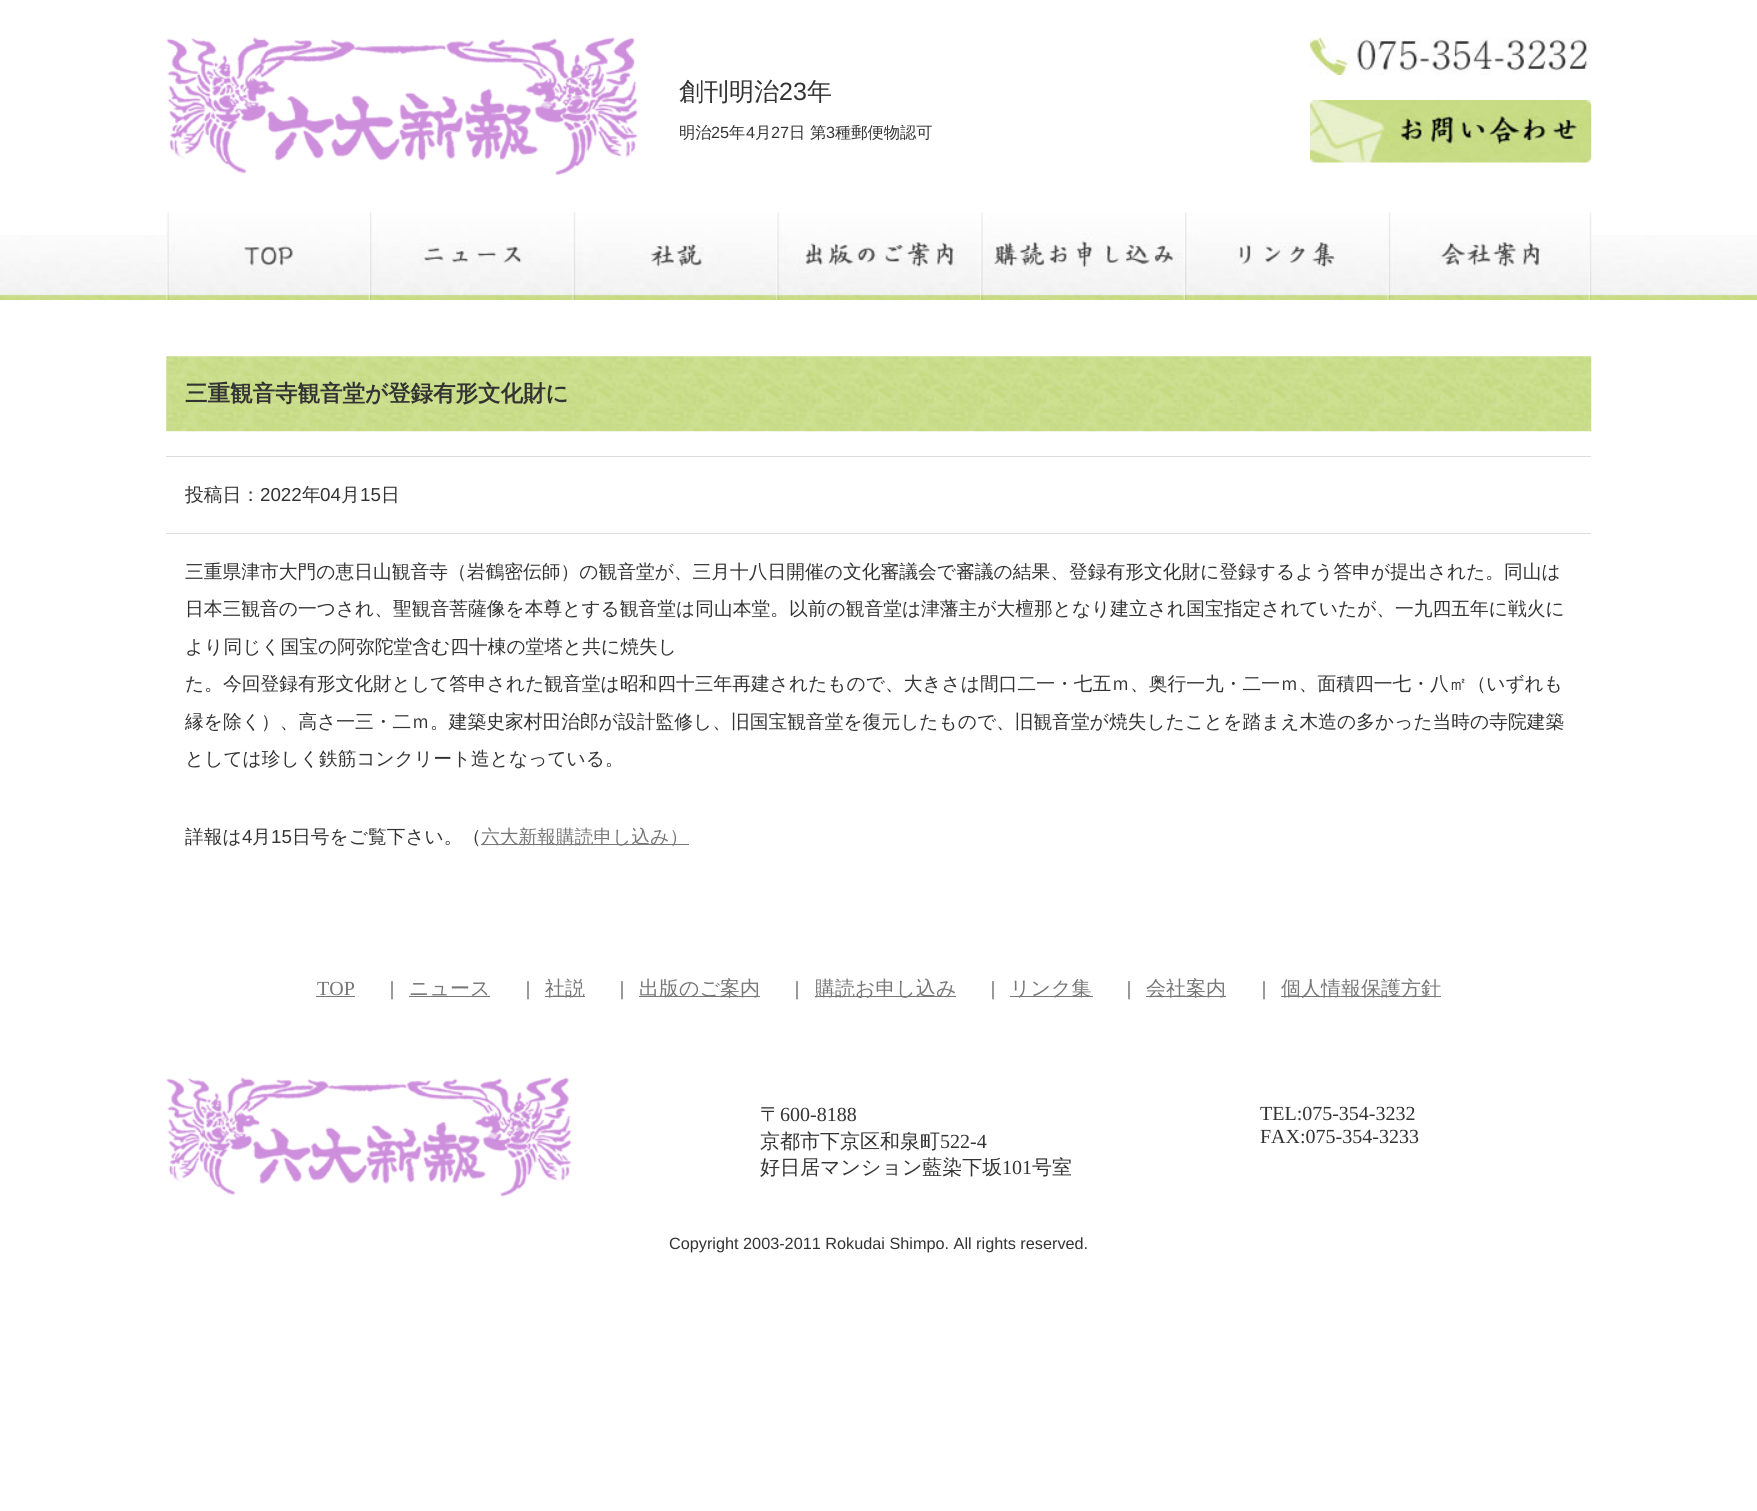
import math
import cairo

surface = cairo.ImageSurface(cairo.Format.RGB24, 1757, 1511)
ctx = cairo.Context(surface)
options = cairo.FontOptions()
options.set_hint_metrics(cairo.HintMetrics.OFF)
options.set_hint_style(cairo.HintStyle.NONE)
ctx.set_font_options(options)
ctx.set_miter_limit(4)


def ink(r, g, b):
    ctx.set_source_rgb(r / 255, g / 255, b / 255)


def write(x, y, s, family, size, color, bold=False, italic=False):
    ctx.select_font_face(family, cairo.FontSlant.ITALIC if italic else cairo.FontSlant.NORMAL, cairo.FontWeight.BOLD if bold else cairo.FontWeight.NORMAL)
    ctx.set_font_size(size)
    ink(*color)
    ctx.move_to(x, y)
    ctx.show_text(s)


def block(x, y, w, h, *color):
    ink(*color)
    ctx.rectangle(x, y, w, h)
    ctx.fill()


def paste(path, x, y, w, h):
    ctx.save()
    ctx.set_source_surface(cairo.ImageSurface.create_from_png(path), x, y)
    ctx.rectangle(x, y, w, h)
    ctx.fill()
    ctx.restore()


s1 = dict(family="WenQuanYi Zen Hei Medium", size=25, color=(51, 51, 51))
s2 = dict(family="Liberation Sans", size=25, color=(51, 51, 51))
s3 = dict(family="WenQuanYi Zen Hei Medium", size=16.25, color=(51, 51, 51))
s4 = dict(family="Liberation Sans", size=16.25, color=(51, 51, 51))
s5 = dict(family="WenQuanYi Zen Hei", size=22.5, color=(51, 51, 51), bold=True)
s6 = dict(family="WenQuanYi Zen Hei Medium", size=18.75, color=(51, 51, 51))
s7 = dict(family="Liberation Sans", size=18.75, color=(51, 51, 51))
s8 = dict(family="WenQuanYi Zen Hei Medium", size=18.75, color=(119, 119, 119))
s9 = dict(family="Liberation Serif", size=20, color=(119, 119, 119))
s10 = dict(family="Liberation Serif", size=20, color=(51, 51, 51))
s11 = dict(family="WenQuanYi Zen Hei Medium", size=20, color=(119, 119, 119))
s12 = dict(family="WenQuanYi Zen Hei Medium", size=20, color=(51, 51, 51))

ink(255, 255, 255)
ctx.paint()
paste("pic1.png", 166, 37, 472, 138)
write(679, 100, "創刊明治", **s1)
write(779, 100, "23", **s2)
write(807, 100, "年", **s1)
write(679, 138, "明治", **s3)
write(711, 138, "25", **s4)
write(729, 138, "年", **s3)
write(746, 138, "4", **s4)
write(755, 138, "月", **s3)
write(771, 138, "27", **s4)
write(789, 138, "日 第", **s3)
write(826, 138, "3", **s4)
write(835, 138, "種郵便物認可", **s3)
paste("pic2.png", 1310, 37, 280, 38)
paste("pic3.png", 1310, 100, 282, 63)
paste("pic4.png", 0, 235, 1757, 65)
paste("pic5.png", 166, 212, 204, 88)
paste("pic6.png", 370, 212, 204, 88)
paste("pic7.png", 573, 212, 205, 88)
paste("pic8.png", 777, 212, 205, 88)
paste("pic9.png", 981, 212, 204, 88)
paste("pic10.png", 1185, 212, 204, 88)
paste("pic11.png", 1388, 212, 204, 88)
paste("pic12.png", 166, 356, 1426, 76)
write(185, 401, "三重観音寺観音堂が登録有形文化財に", **s5)
block(166, 456, 1425, 1, 221, 221, 221)
block(166, 533, 1425, 1, 221, 221, 221)
write(185, 501, "投稿日：", **s6)
write(260, 501, "2022", **s7)
write(302, 501, "年", **s6)
write(320, 501, "04", **s7)
write(341, 501, "月", **s6)
write(360, 501, "15", **s7)
write(381, 501, "日", **s6)
write(185, 578, "三重県津市大門の恵日山観音寺（岩鶴密伝師）の観音堂が、三月十八日開催の文化審議会で審議の結果、登録有形文化財に登録するよう答申が提出された。同山は", **s6)
write(185, 615, "日本三観音の一つされ、聖観音菩薩像を本尊とする観音堂は同山本堂。以前の観音堂は津藩主が大檀那となり建立され国宝指定されていたが、一九四五年に戦火に", **s6)
write(185, 653, "より同じく国宝の阿弥陀堂含む四十棟の堂塔と共に焼失し", **s6)
write(185, 690, "た。今回登録有形文化財として答申された観音堂は昭和四十三年再建されたもので、大きさは間口二一・七五ｍ、奥行一九・二一ｍ、面積四一七・八㎡（いずれも", **s6)
write(185, 728, "縁を除く）、高さ一三・二ｍ。建築史家村田治郎が設計監修し、旧国宝観音堂を復元したもので、旧観音堂が焼失したことを踏まえ木造の多かった当時の寺院建築", **s6)
write(185, 765, "としては珍しく鉄筋コンクリート造となっている。", **s6)
write(185, 843, "詳報は", **s6)
write(242, 843, "4", **s7)
write(252, 843, "月", **s6)
write(271, 843, "15", **s7)
write(292, 843, "日号をご覧下さい。（", **s6)
block(481, 844, 208, 1, 119, 119, 119)
write(481, 843, "六大新報購読申し込み）", **s8)
write(317, 995, "TOP", **s9)
block(316, 996, 39, 1, 119, 119, 119)
write(390, 995, "|", **s10)
write(409, 995, "ニュース", **s11)
block(409, 996, 81, 1, 119, 119, 119)
write(526, 995, "|", **s10)
block(545, 996, 40, 1, 119, 119, 119)
write(545, 995, "社説", **s11)
write(620, 995, "|", **s10)
block(639, 996, 121, 1, 119, 119, 119)
write(639, 995, "出版のご案内", **s11)
write(795, 995, "|", **s10)
block(815, 996, 141, 1, 119, 119, 119)
write(815, 995, "購読お申し込み", **s11)
write(991, 995, "|", **s10)
block(1010, 996, 83, 1, 119, 119, 119)
write(1010, 995, "リンク集", **s11)
write(1127, 995, "|", **s10)
block(1146, 996, 80, 1, 119, 119, 119)
write(1146, 995, "会社案内", **s11)
write(1262, 995, "|", **s10)
block(1281, 996, 160, 1, 119, 119, 119)
write(1281, 995, "個人情報保護方針", **s11)
paste("pic13.png", 166, 1077, 406, 120)
write(760, 1121, "〒", **s12)
write(780, 1121, "600-8188", **s10)
write(760, 1148, "京都市下京区和泉町", **s12)
write(940, 1148, "522-4", **s10)
write(760, 1174, "好日居マンション藍染下坂", **s12)
write(1002, 1174, "101", **s10)
write(1032, 1174, "号室", **s12)
write(1260, 1120, "TEL:075-354-3232", **s10)
write(1260, 1143, "FAX:075-354-3233", **s10)
write(669, 1249, "Copyright 2003-2011 Rokudai Shimpo. All rights reserved.", **s4)
surface.write_to_png("screenshot.png")
